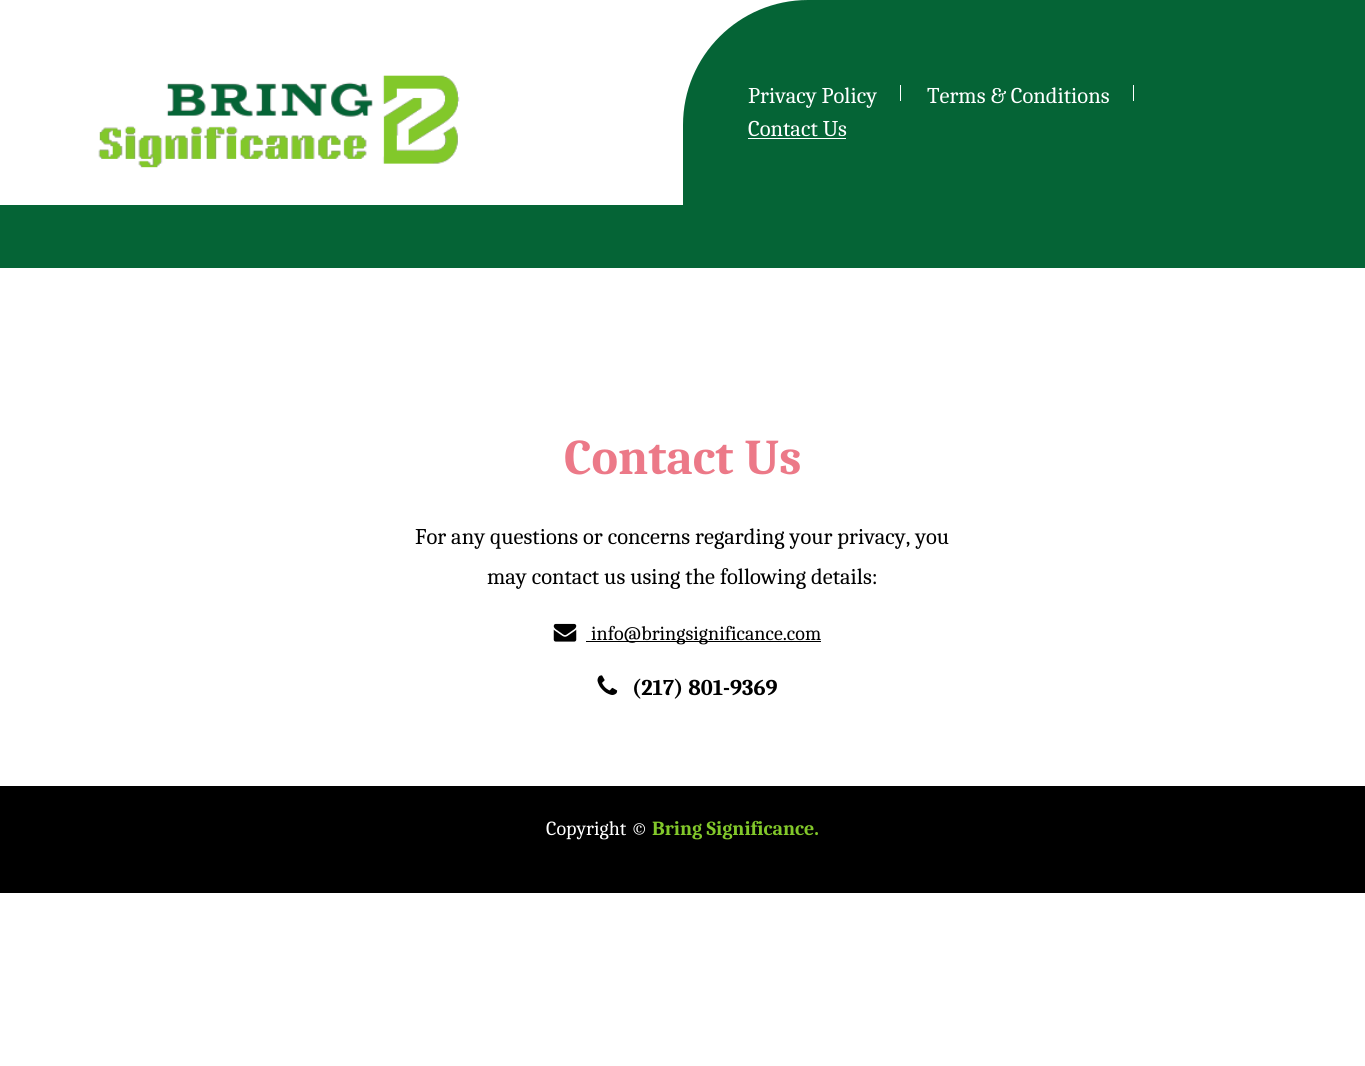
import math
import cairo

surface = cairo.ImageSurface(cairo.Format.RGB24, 1365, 1066)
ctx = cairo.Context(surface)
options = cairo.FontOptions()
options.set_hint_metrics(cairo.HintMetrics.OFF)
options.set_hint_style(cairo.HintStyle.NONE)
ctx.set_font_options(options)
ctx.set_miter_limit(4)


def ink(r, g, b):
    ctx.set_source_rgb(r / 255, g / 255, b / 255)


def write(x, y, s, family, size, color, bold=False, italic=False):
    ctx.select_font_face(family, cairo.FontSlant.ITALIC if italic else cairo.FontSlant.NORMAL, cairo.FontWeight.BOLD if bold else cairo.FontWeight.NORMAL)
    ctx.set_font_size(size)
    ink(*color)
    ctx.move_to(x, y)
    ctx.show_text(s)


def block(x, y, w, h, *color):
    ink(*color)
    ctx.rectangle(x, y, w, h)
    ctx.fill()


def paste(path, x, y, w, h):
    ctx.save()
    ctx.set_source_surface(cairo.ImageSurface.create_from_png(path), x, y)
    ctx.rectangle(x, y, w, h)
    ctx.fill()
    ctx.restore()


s1 = dict(family="Caladea", size=22.5, color=(255, 255, 255))
s2 = dict(family="Caladea", size=50, color=(236, 121, 136), bold=True)
s3 = dict(family="Caladea", size=22.5, color=(0, 0, 0))
s4 = dict(family="Caladea", size=20, color=(0, 0, 0))
s5 = dict(family="Caladea", size=22.5, color=(0, 0, 0), bold=True)
s6 = dict(family="Caladea", size=20, color=(255, 255, 255))
s7 = dict(family="Caladea", size=20, color=(130, 200, 42), bold=True)

ink(255, 255, 255)
ctx.paint()
block(0, 205, 1365, 63, 5, 100, 54)
ctx.new_path()
ctx.move_to(808, 0)
ctx.line_to(1365, 0)
ctx.line_to(1365, 250)
ctx.line_to(683, 250)
ctx.line_to(683, 125)
ctx.curve_to(683, 56, 739, 0, 808, 0)
ctx.close_path()
ctx.fill()
paste("pic1.png", 98, 75, 362, 93)
write(748, 103, "Privacy Policy", **s1)
block(900, 85, 1, 16, 255, 255, 255)
write(927, 103, "Terms & Conditions", **s1)
block(1133, 85, 1, 16, 255, 255, 255)
write(748, 136, "Contact Us", **s1)
block(748, 138, 98, 1, 255, 255, 255)
write(564, 474, "Contact Us", **s2)
write(415, 544, "For any questions or concerns regarding your privacy, you", **s3)
write(487, 584, "may contact us using the following details:", **s3)
paste("pic2.png", 553, 623, 24, 19)
block(586, 641, 235, 1, 0, 0, 0)
write(591, 640, "info@bringsignificance.com", **s4)
paste("pic3.png", 597, 675, 21, 20)
write(632, 695, "(217) 801-9369", **s5)
block(0, 786, 1365, 107, 0, 0, 0)
write(546, 835, "Copyright ©", **s6)
write(652, 835, "Bring Significance.", **s7)
surface.write_to_png("screenshot.png")
